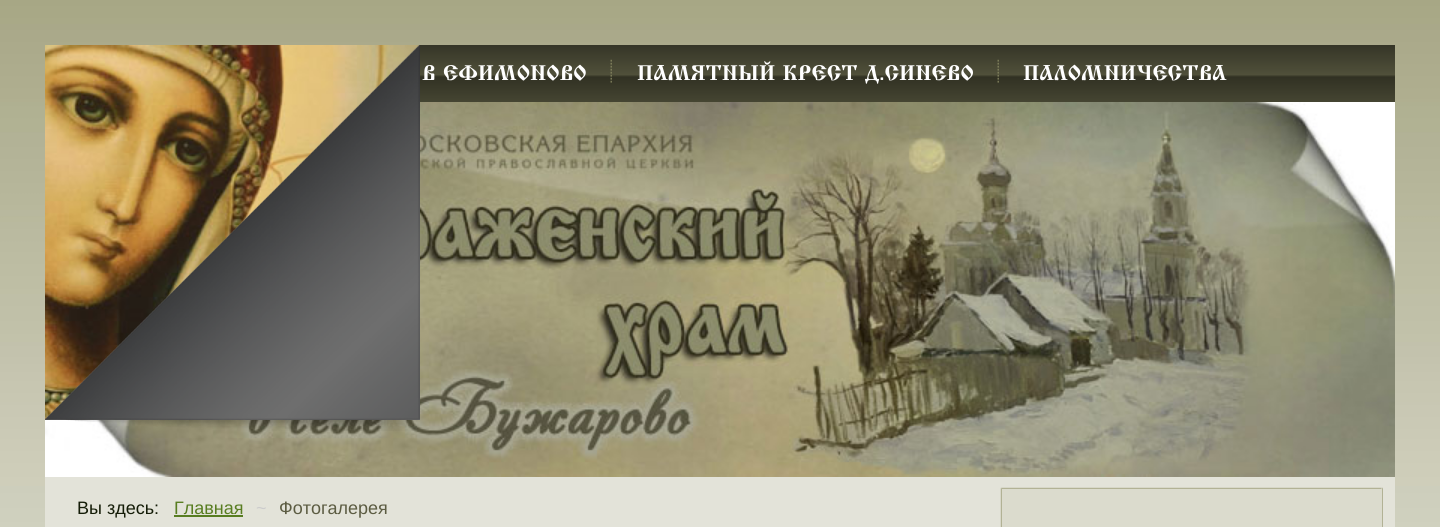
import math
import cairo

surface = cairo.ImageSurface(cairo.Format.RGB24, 1440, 527)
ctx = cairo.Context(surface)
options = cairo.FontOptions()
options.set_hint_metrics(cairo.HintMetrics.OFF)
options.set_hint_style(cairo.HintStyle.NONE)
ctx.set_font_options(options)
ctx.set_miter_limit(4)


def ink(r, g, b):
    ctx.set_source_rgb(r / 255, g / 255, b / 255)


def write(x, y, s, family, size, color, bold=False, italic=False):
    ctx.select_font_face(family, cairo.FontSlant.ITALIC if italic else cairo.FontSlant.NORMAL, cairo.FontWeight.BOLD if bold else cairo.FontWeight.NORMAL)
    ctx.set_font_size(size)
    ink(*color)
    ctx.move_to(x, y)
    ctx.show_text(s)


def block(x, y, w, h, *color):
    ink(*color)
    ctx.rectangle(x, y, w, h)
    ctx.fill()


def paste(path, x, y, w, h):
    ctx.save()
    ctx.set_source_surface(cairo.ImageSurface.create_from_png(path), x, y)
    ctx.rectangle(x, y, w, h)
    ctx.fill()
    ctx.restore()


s1 = dict(family="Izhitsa", size=21, color=(255, 255, 255))
s2 = dict(family="Liberation Sans", size=18, color=(20, 28, 7))
s3 = dict(family="Liberation Sans", size=18, color=(88, 125, 33))
s4 = dict(family="Liberation Sans", size=18, color=(204, 204, 204))
s5 = dict(family="Liberation Sans", size=18, color=(92, 92, 66))

ink(255, 255, 255)
ctx.paint()
paste("pic1.png", 0, 0, 1440, 527)
paste("pic5.png", 45, 102, 1350, 375)
paste("pic2.png", 45, 45, 375, 375)
paste("pic3.png", 45, 45, 375, 386)
gradient = cairo.LinearGradient(720, 45, 720, 102)
gradient.add_color_stop_rgba(0, 0.208, 0.208, 0.153, 1)
gradient.add_color_stop_rgba(0.52, 0.314, 0.314, 0.227, 1)
gradient.add_color_stop_rgba(0.56, 0.192, 0.192, 0.137, 1)
gradient.add_color_stop_rgba(1, 0.271, 0.271, 0.196, 1)
ctx.set_source(gradient)
ctx.rectangle(420, 45, 975, 57)
ctx.fill()
write(422, 80, "В ЕФИМОНОВО", **s1)
paste("pic4.png", 610, 59, 2, 24)
write(637, 80, "ПАМЯТНЫЙ КРЕСТ Д.СИНЕВО", **s1)
paste("pic4.png", 997, 59, 2, 24)
write(1023, 80, "ПАЛОМНИЧЕСТВА", **s1)
block(45, 477, 1350, 50, 227, 227, 217)
write(77, 514, "Вы здесь:", **s2)
write(174, 514, "Главная", **s3)
block(174, 515, 69, 2, 88, 125, 33)
write(256, 514, "~", **s4)
write(279, 514, "Фотогалерея", **s5)
paste("pic6.png", 1000, 487, 2, 2)
paste("pic8.png", 1381, 487, 2, 2)
paste("pic7.png", 1002, 487, 380, 2)
paste("pic9.png", 1000, 489, 2, 38)
block(1002, 489, 380, 38, 219, 219, 205)
paste("pic10.png", 1382, 489, 1, 38)
surface.write_to_png("screenshot.png")
